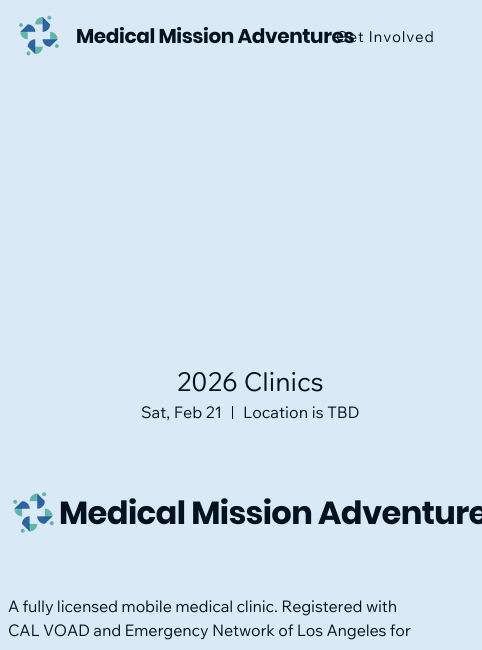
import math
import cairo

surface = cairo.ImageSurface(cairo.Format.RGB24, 482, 650)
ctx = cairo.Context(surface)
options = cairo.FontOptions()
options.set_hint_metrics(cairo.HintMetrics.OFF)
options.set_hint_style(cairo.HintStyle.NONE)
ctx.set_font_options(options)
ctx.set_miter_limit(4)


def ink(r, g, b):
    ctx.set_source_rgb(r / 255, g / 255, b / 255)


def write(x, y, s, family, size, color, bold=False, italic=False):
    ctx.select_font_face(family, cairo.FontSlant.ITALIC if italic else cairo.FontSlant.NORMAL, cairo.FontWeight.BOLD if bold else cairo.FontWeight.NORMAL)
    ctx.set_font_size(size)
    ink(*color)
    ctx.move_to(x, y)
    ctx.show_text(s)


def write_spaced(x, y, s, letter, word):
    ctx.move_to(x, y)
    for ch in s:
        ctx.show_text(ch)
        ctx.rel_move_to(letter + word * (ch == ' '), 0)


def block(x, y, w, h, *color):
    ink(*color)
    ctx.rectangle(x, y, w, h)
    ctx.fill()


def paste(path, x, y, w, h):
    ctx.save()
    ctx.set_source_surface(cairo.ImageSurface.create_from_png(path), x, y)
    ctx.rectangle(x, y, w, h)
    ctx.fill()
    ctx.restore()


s1 = dict(family="Wix Madefor Text", size=26, color=(5, 17, 31))
s2 = dict(family="Wix Madefor Text", size=16, color=(5, 17, 31))

ink(217, 233, 245)
ctx.paint()
paste("pic1.png", 19, 15, 40, 41)
ctx.select_font_face("Poppins", cairo.FontSlant.NORMAL, cairo.FontWeight.BOLD)
ctx.set_font_size(20)
ink(5, 17, 31)
write_spaced(76, 43, "Medical Mission Adventures", -0.4, 0)
ctx.select_font_face("Wix Madefor Text")
ctx.set_font_size(15)
write_spaced(336, 42, "Get Involved", 0.75, 0)
write(177, 391, "2026 Clinics", **s1)
write(141, 418, "Sat, Feb 21", **s2)
block(232, 406, 1, 13, 5, 17, 31)
write(243, 418, "Location is TBD", **s2)
paste("pic2.png", 13, 492, 41, 41)
ctx.select_font_face("Poppins", cairo.FontSlant.NORMAL, cairo.FontWeight.BOLD)
ctx.set_font_size(32)
write_spaced(59, 524, "Medical Mission Adventure", -0.6, 0)
ctx.select_font_face("Wix Madefor Text")
ctx.set_font_size(16)
write_spaced(8, 612, "A fully licensed mobile medical clinic. Registered with", -0.15, 0)
write_spaced(8, 636, "CAL VOAD and Emergency Network of Los Angeles for", -0.15, 0)
surface.write_to_png("screenshot.png")
